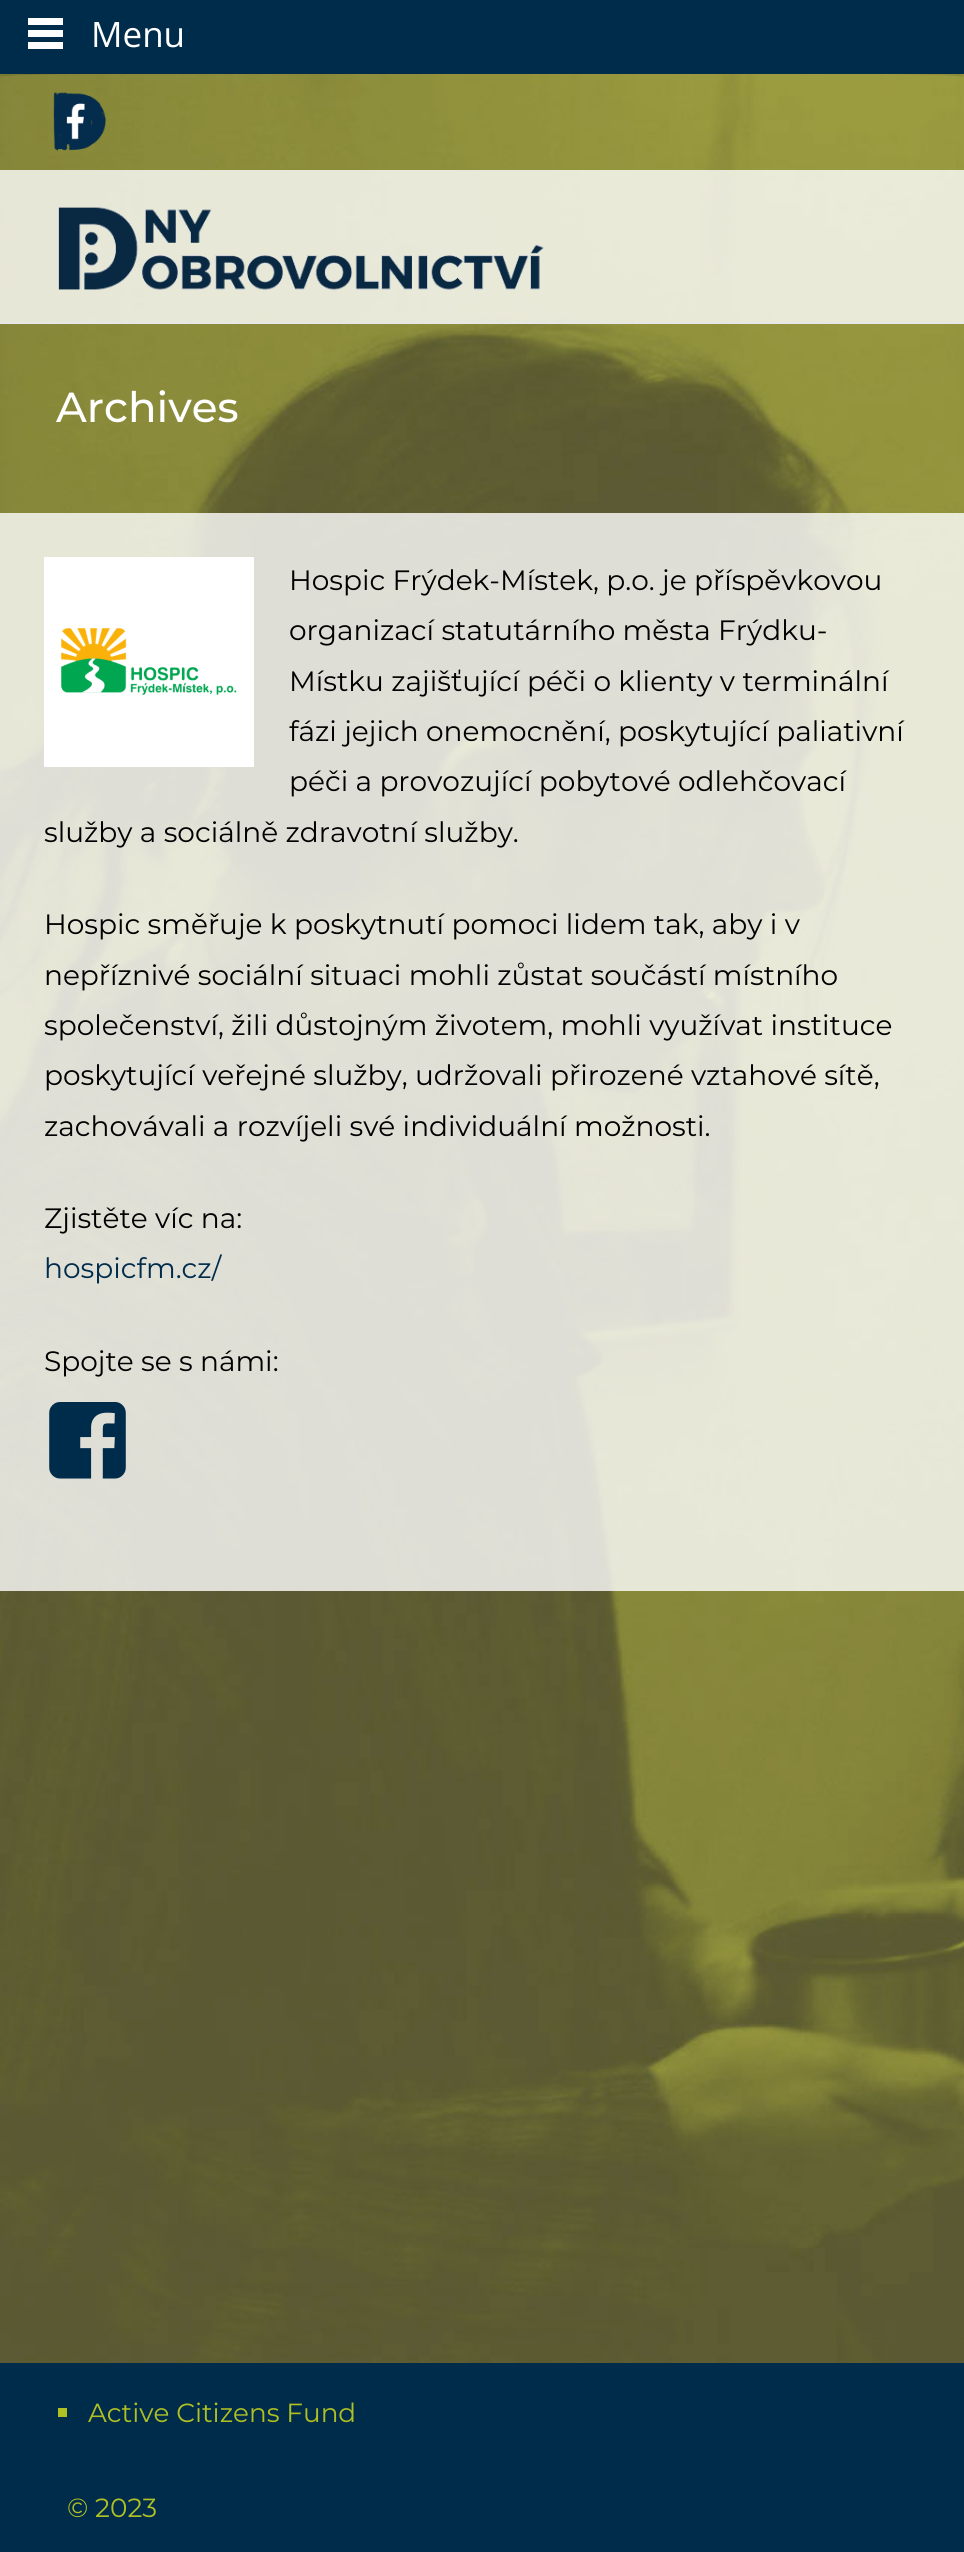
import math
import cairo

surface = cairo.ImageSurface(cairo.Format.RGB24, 964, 2552)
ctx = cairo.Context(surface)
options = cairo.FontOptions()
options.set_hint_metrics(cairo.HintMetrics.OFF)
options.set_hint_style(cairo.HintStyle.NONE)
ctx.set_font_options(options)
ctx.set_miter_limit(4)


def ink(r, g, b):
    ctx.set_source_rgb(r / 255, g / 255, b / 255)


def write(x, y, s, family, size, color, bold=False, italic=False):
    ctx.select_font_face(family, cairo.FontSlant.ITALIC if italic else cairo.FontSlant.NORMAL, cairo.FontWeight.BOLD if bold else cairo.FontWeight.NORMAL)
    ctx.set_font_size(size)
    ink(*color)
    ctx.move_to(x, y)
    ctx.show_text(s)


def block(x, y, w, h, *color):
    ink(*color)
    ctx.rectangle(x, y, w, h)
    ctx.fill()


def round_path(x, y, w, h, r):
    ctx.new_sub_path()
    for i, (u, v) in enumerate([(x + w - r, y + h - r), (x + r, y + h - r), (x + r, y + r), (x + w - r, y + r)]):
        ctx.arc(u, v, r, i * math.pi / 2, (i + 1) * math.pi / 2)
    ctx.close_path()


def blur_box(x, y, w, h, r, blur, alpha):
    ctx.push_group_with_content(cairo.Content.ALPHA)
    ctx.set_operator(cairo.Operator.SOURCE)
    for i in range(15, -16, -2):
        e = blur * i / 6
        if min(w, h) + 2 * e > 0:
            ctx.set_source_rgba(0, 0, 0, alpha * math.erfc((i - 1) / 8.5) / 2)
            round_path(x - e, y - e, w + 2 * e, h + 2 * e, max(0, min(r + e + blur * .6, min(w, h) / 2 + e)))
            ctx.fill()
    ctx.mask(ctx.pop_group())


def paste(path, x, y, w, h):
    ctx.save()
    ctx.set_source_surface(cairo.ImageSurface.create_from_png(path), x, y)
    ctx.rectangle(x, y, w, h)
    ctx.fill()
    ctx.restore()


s1 = dict(family="Open Sans", size=35, color=(255, 255, 255))
s2 = dict(family="Montserrat Medium", size=42, color=(255, 255, 255))
s3 = dict(family="Montserrat", size=28, color=(0, 0, 0))
s4 = dict(family="Montserrat", size=28, color=(0, 44, 76))
s5 = dict(family="Montserrat", size=26.25, color=(176, 192, 35))

ink(255, 255, 255)
ctx.paint()
paste("pic1.png", 0, 74, 964, 2289)
ctx.save()
ctx.set_fill_rule(cairo.FillRule.EVEN_ODD)
ctx.new_path()
ctx.move_to(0, 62)
ctx.line_to(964, 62)
ctx.line_to(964, 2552)
ctx.line_to(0, 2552)
ctx.close_path()
ctx.move_to(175, 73.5)
ctx.line_to(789, 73.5)
ctx.curve_to(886, 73.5, 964, 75, 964, 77)
ctx.line_to(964, 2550)
ctx.curve_to(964, 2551.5, 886, 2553, 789, 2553)
ctx.line_to(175, 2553)
ctx.curve_to(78.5, 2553, 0, 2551.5, 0, 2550)
ctx.line_to(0, 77)
ctx.curve_to(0, 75, 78.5, 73.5, 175, 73.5)
ctx.close_path()
ctx.clip()
ink(0, 0, 0)
blur_box(0, 74, 964, 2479, 4, 3.5, 0.1)
blur_box(0, 74, 964, 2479, 4, 3.5, 0.1)
ctx.restore()
block(0, 0, 964, 74, 0, 44, 76)
block(28, 18, 35, 7, 255, 255, 255)
block(28, 30, 35, 7, 255, 255, 255)
block(28, 42, 35, 7, 255, 255, 255)
write(91, 47, "Menu", **s1)
paste("pic2.png", 53, 92, 53, 59)
ctx.set_source_rgba(1, 1, 1, 0.8)
ctx.rectangle(0, 170, 964, 152)
ctx.fill()
block(0, 322, 964, 2, 231, 231, 231)
paste("pic3.png", 58, 207, 486, 83)
write(56, 422, "Archives", **s2)
ctx.set_source_rgba(1, 1, 1, 0.8)
ctx.rectangle(0, 513, 964, 1078)
ctx.fill()
block(44, 557, 210, 210, 255, 255, 255)
paste("pic4.png", 61, 628, 176, 67)
write(289, 590, "Hospic Frýdek-Místek, p.o. je příspěvkovou", **s3)
write(289, 640, "organizací statutárního města Frýdku-", **s3)
write(289, 691, "Místku zajišťující péči o klienty v terminální", **s3)
write(289, 741, "fázi jejich onemocnění, poskytující paliativní", **s3)
write(289, 791, "péči a provozující pobytové odlehčovací", **s3)
write(44, 842, "služby a sociálně zdravotní služby.", **s3)
write(44, 934, "Hospic směřuje k poskytnutí pomoci lidem tak, aby i v", **s3)
write(44, 985, "nepříznivé sociální situaci mohli zůstat součástí místního", **s3)
write(44, 1035, "společenství, žili důstojným životem, mohli využívat instituce", **s3)
write(44, 1085, "poskytující veřejné služby, udržovali přirozené vztahové sítě,", **s3)
write(44, 1136, "zachovávali a rozvíjeli své individuální možnosti.", **s3)
write(44, 1228, "Zjistěte víc na:", **s3)
write(44, 1278, "hospicfm.cz/", **s4)
write(44, 1371, "Spojte se s námi:", **s3)
paste("pic5.png", 49, 1402, 77, 77)
block(0, 2363, 964, 189, 0, 44, 76)
block(58, 2408, 9, 9, 176, 192, 35)
write(88, 2422, "Active Citizens Fund", **s5)
write(67, 2517, "© 2023", **s5)
surface.write_to_png("screenshot.png")
